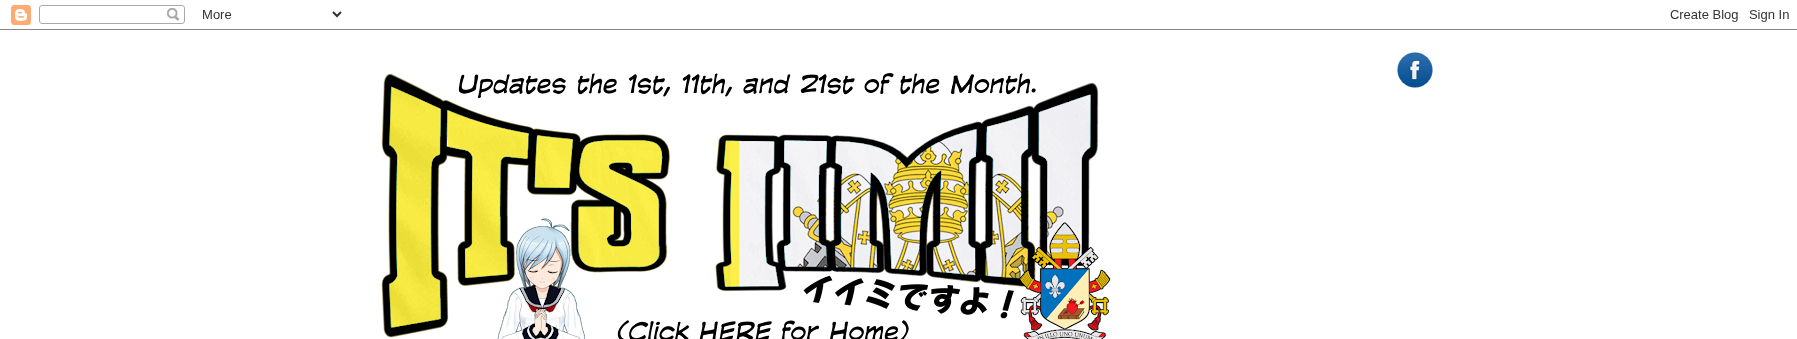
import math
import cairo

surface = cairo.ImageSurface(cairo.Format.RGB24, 1797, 339)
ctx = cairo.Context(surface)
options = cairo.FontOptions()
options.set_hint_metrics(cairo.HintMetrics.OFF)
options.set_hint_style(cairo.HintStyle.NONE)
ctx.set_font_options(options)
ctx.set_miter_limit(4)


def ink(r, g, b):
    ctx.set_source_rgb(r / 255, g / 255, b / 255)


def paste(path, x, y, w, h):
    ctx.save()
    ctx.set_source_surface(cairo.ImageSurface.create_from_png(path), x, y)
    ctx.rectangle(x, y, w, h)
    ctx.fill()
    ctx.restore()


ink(255, 255, 255)
ctx.paint()
paste("pic1.png", 0, 5, 1797, 25)
paste("pic2.png", 381, 72, 730, 267)
paste("pic3.png", 1397, 52, 36, 36)
surface.write_to_png("screenshot.png")
